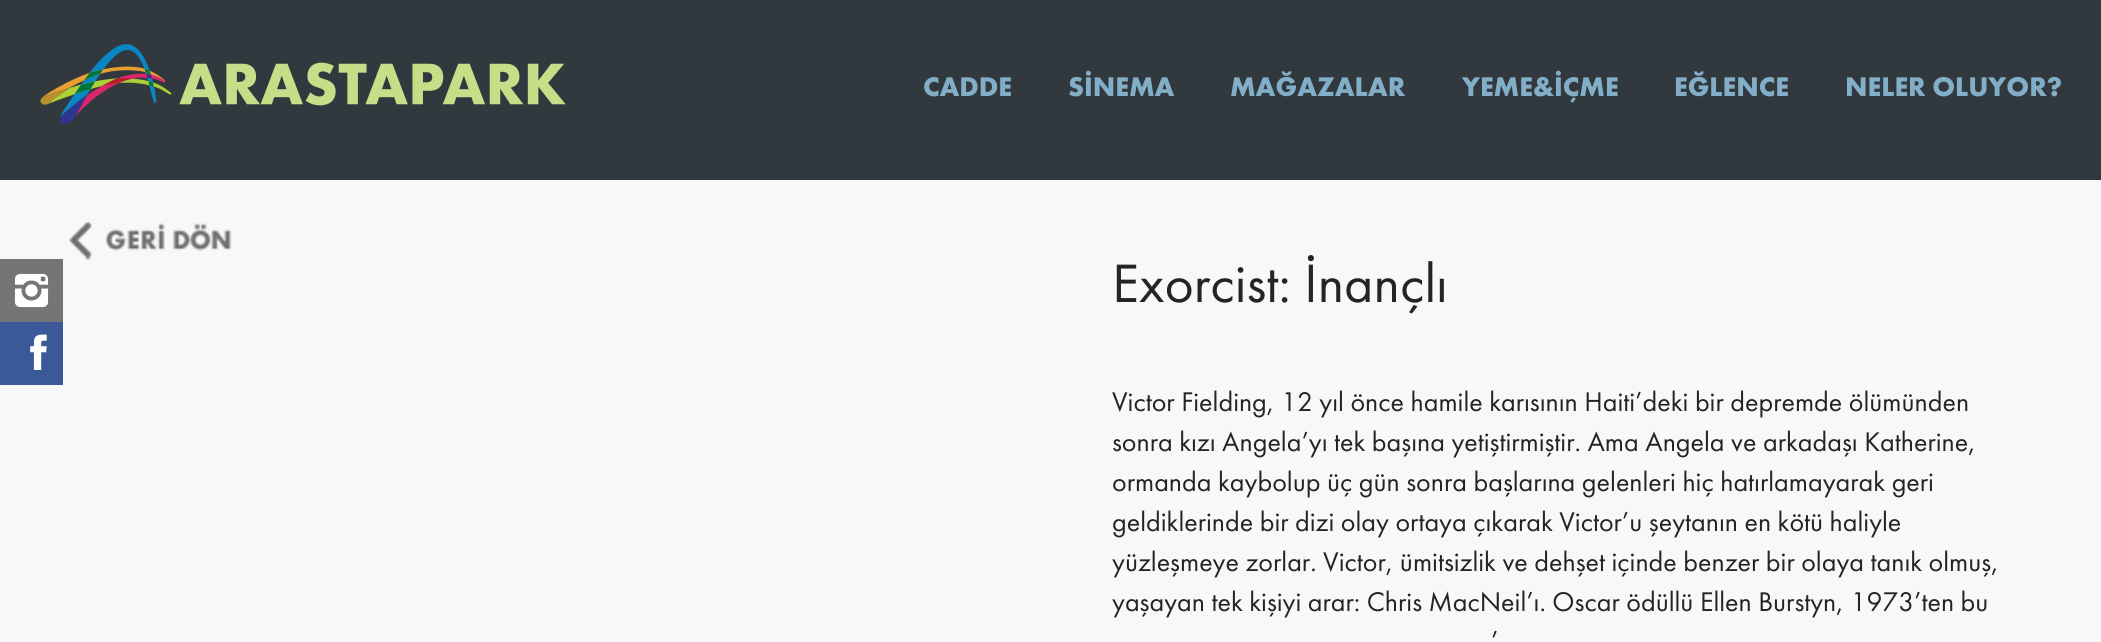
import math
import cairo

surface = cairo.ImageSurface(cairo.Format.RGB24, 2101, 642)
ctx = cairo.Context(surface)
options = cairo.FontOptions()
options.set_hint_metrics(cairo.HintMetrics.OFF)
options.set_hint_style(cairo.HintStyle.NONE)
ctx.set_font_options(options)
ctx.set_miter_limit(4)


def ink(r, g, b):
    ctx.set_source_rgb(r / 255, g / 255, b / 255)


def write(x, y, s, family, size, color, bold=False, italic=False):
    ctx.select_font_face(family, cairo.FontSlant.ITALIC if italic else cairo.FontSlant.NORMAL, cairo.FontWeight.BOLD if bold else cairo.FontWeight.NORMAL)
    ctx.set_font_size(size)
    ink(*color)
    ctx.move_to(x, y)
    ctx.show_text(s)


def block(x, y, w, h, *color):
    ink(*color)
    ctx.rectangle(x, y, w, h)
    ctx.fill()


def paste(path, x, y, w, h):
    ctx.save()
    ctx.set_source_surface(cairo.ImageSurface.create_from_png(path), x, y)
    ctx.rectangle(x, y, w, h)
    ctx.fill()
    ctx.restore()


s1 = dict(family="Futura PT", size=28, color=(130, 174, 199), bold=True)
s2 = dict(family="Futura PT", size=56, color=(36, 36, 36))
s3 = dict(family="Futura PT", size=28, color=(36, 36, 36))

ink(248, 248, 248)
ctx.paint()
block(0, 0, 2101, 180, 49, 57, 62)
paste("pic1.png", 40, 44, 526, 80)
write(923, 96, "CADDE", **s1)
write(1068, 96, "SİNEMA", **s1)
write(1230, 96, "MAĞAZALAR", **s1)
write(1462, 96, "YEME&İÇME", **s1)
write(1674, 96, "EĞLENCE", **s1)
write(1845, 96, "NELER OLUYOR?", **s1)
block(0, 259, 63, 63, 117, 117, 117)
paste("pic2.png", 14, 273, 35, 35)
block(0, 322, 63, 63, 59, 89, 152)
paste("pic3.png", 30, 334, 17, 36)
paste("pic4.png", 69, 221, 163, 39)
write(1112, 302, "Exorcist: İnançlı", **s2)
write(1112, 411, "Victor Fielding, 12 yıl önce hamile karısının Haiti’deki bir depremde ölümünden", **s3)
write(1112, 451, "sonra kızı Angela’yı tek başına yetiştirmiştir. Ama Angela ve arkadaşı Katherine,", **s3)
write(1112, 491, "ormanda kaybolup üç gün sonra başlarına gelenleri hiç hatırlamayarak geri", **s3)
write(1112, 531, "geldiklerinde bir dizi olay ortaya çıkarak Victor’u şeytanın en kötü haliyle", **s3)
write(1112, 571, "yüzleşmeye zorlar. Victor, ümitsizlik ve dehşet içinde benzer bir olaya tanık olmuş,", **s3)
write(1112, 611, "yaşayan tek kişiyi arar: Chris MacNeil’ı. Oscar ödüllü Ellen Burstyn, 1973’ten bu", **s3)
write(1491, 650, "’", **s3)
surface.write_to_png("screenshot.png")
